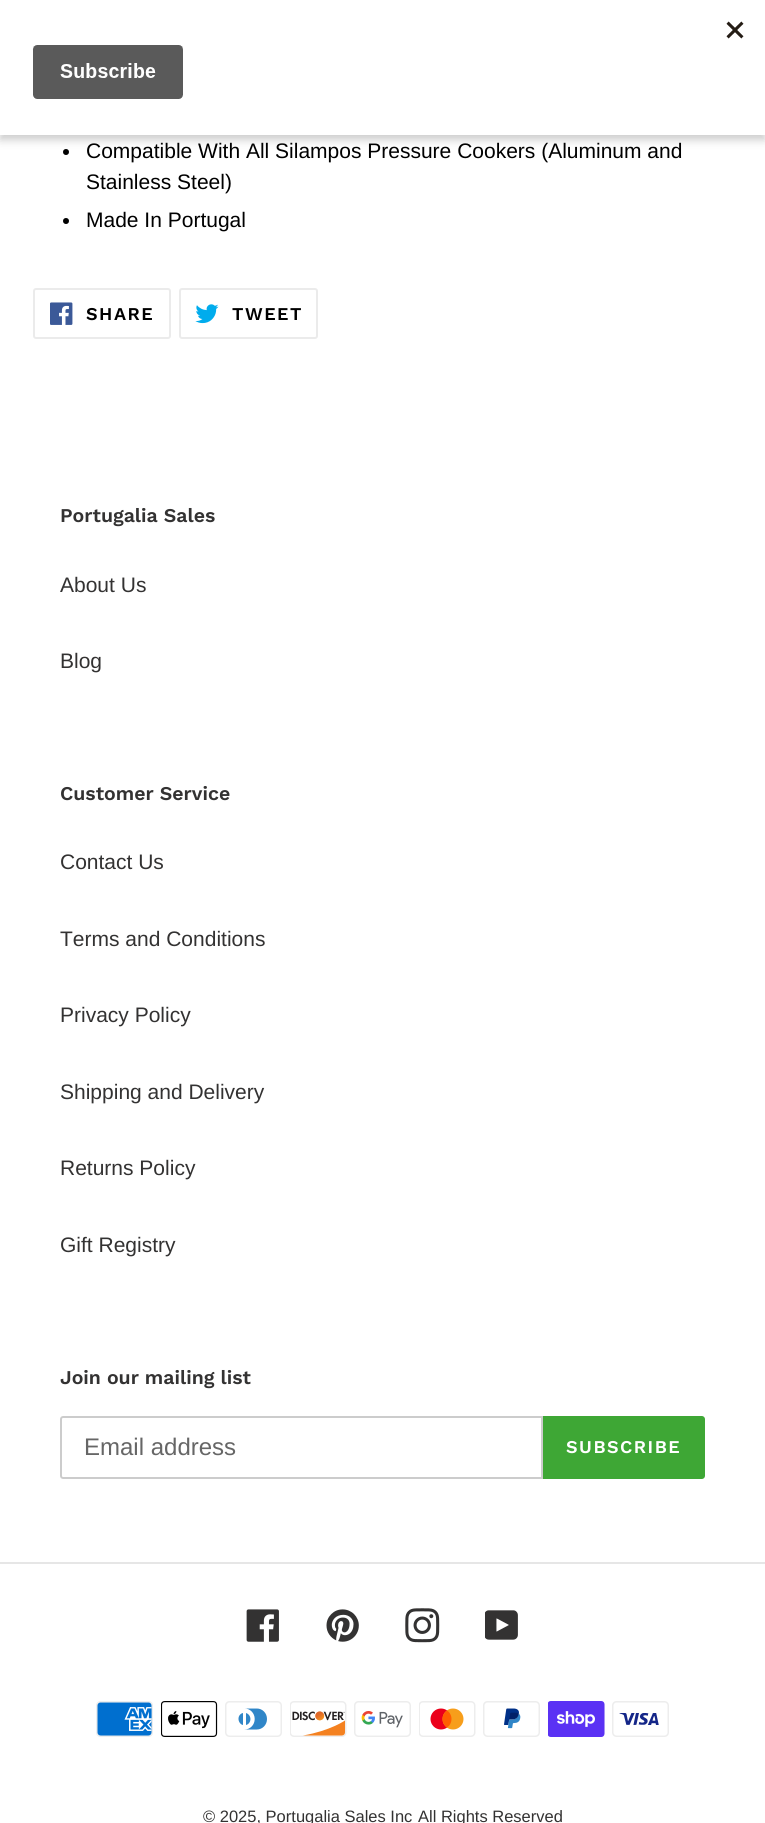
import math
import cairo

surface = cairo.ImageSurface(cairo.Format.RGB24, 765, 1823)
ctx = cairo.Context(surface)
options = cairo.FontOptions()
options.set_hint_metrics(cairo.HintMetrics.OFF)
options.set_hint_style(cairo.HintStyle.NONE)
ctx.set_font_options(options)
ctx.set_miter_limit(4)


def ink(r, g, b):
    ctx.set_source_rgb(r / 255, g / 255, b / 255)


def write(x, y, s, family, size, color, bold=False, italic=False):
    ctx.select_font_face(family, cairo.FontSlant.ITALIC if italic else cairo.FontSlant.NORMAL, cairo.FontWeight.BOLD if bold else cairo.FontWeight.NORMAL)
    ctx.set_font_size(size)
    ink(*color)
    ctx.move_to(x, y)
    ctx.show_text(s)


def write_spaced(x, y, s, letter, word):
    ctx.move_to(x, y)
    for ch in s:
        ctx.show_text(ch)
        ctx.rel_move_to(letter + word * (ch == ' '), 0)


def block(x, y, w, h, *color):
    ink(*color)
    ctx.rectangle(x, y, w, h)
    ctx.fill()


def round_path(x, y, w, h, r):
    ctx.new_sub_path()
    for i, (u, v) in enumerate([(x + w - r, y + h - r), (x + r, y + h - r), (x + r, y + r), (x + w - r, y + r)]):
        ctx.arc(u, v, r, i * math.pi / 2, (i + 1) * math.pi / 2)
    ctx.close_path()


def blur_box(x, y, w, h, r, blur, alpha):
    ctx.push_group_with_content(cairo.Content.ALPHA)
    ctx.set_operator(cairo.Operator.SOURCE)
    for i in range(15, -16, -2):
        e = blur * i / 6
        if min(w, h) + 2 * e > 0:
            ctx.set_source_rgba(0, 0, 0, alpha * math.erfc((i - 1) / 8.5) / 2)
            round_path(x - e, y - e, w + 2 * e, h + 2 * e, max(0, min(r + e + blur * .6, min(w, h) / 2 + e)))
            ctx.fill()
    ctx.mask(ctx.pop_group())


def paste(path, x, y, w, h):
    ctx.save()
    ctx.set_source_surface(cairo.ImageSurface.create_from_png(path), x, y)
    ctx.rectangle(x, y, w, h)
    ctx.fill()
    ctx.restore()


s1 = dict(family="Liberation Sans", size=21, color=(0, 0, 0))
s2 = dict(family="Work Sans SemiBold", size=19.5, color=(51, 50, 50))
s3 = dict(family="Liberation Sans", size=21, color=(51, 50, 50))
s4 = dict(family="Liberation Sans", size=24, color=(102, 102, 102))
s5 = dict(family="Liberation Sans", size=16.5, color=(51, 50, 50))

ink(255, 255, 255)
ctx.paint()
ink(0, 0, 0)
ctx.arc(66, 152, 3, 0, 2 * math.pi)
ctx.fill()
ink(0, 0, 0)
blur_box(0, 5, 765, 135, 0, 4.5, 0.2)
block(0, 0, 765, 135, 255, 255, 255)
paste("pic1.png", 32, 21, 712, 78)
write(86, 158, "Compatible With All Silampos Pressure Cookers (Aluminum and", **s1)
write(86, 189, "Stainless Steel)", **s1)
ctx.new_path()
ctx.arc(66, 221, 3, 0, 2 * math.pi)
ctx.fill()
write(86, 227, "Made In Portugal", **s1)
round_path(34, 289, 136, 49, 2)
ink(235, 235, 235)
ctx.stroke()
paste("pic2.png", 50, 302, 23, 23)
ctx.select_font_face("Work Sans SemiBold")
ctx.set_font_size(18)
ink(0, 0, 0)
write_spaced(86, 320, "SHARE", 1.5, 0)
round_path(180, 289, 137, 49, 2)
ink(235, 235, 235)
ctx.stroke()
paste("pic3.png", 195, 304, 24, 20)
ink(0, 0, 0)
write_spaced(232, 320, "TWEET", 1.5, 0)
write(60, 522, "Portugalia Sales", **s2)
write(60, 592, "About Us", **s3)
write(60, 668, "Blog", **s3)
write(60, 800, "Customer Service", **s2)
write(60, 869, "Contact Us", **s3)
write(60, 946, "Terms and Conditions", **s3)
write(60, 1022, "Privacy Policy", **s3)
write(60, 1099, "Shipping and Delivery", **s3)
write(60, 1175, "Returns Policy", **s3)
write(60, 1252, "Gift Registry", **s3)
write(60, 1384, "Join our mailing list", **s2)
ctx.new_path()
ctx.move_to(63, 1417)
ctx.line_to(542, 1417)
ctx.line_to(542, 1478)
ctx.line_to(63, 1478)
ctx.curve_to(62, 1478, 61, 1477, 61, 1476)
ctx.line_to(61, 1419)
ctx.curve_to(61, 1418, 62, 1417, 63, 1417)
ctx.close_path()
ink(204, 204, 204)
ctx.stroke()
write(84, 1455, "Email address", **s4)
ink(62, 167, 53)
ctx.new_path()
ctx.move_to(543, 1416)
ctx.line_to(702, 1416)
ctx.curve_to(703.5, 1416, 705, 1417.5, 705, 1419)
ctx.line_to(705, 1476)
ctx.curve_to(705, 1477.5, 703.5, 1479, 702, 1479)
ctx.line_to(543, 1479)
ctx.close_path()
ctx.fill()
ctx.select_font_face("Work Sans SemiBold")
ctx.set_font_size(18)
ink(255, 255, 255)
write_spaced(566, 1453, "SUBSCRIBE", 1.5, 0)
block(0, 1562, 765, 2, 230, 230, 230)
paste("pic4.png", 246, 1609, 33, 33)
paste("pic5.png", 326, 1609, 33, 33)
paste("pic6.png", 405, 1608, 35, 35)
paste("pic7.png", 485, 1610, 33, 30)
paste("pic8.png", 96, 1701, 57, 36)
paste("pic9.png", 161, 1701, 57, 36)
paste("pic10.png", 225, 1701, 57, 36)
paste("pic11.png", 290, 1701, 57, 36)
paste("pic12.png", 354, 1701, 57, 36)
paste("pic13.png", 419, 1701, 57, 36)
paste("pic14.png", 483, 1701, 57, 36)
paste("pic15.png", 548, 1701, 57, 36)
paste("pic16.png", 612, 1701, 57, 36)
write(203, 1822, "© 2025, Portugalia Sales Inc", **s5)
write(418, 1822, "All Rights Reserved", **s5)
surface.write_to_png("screenshot.png")
